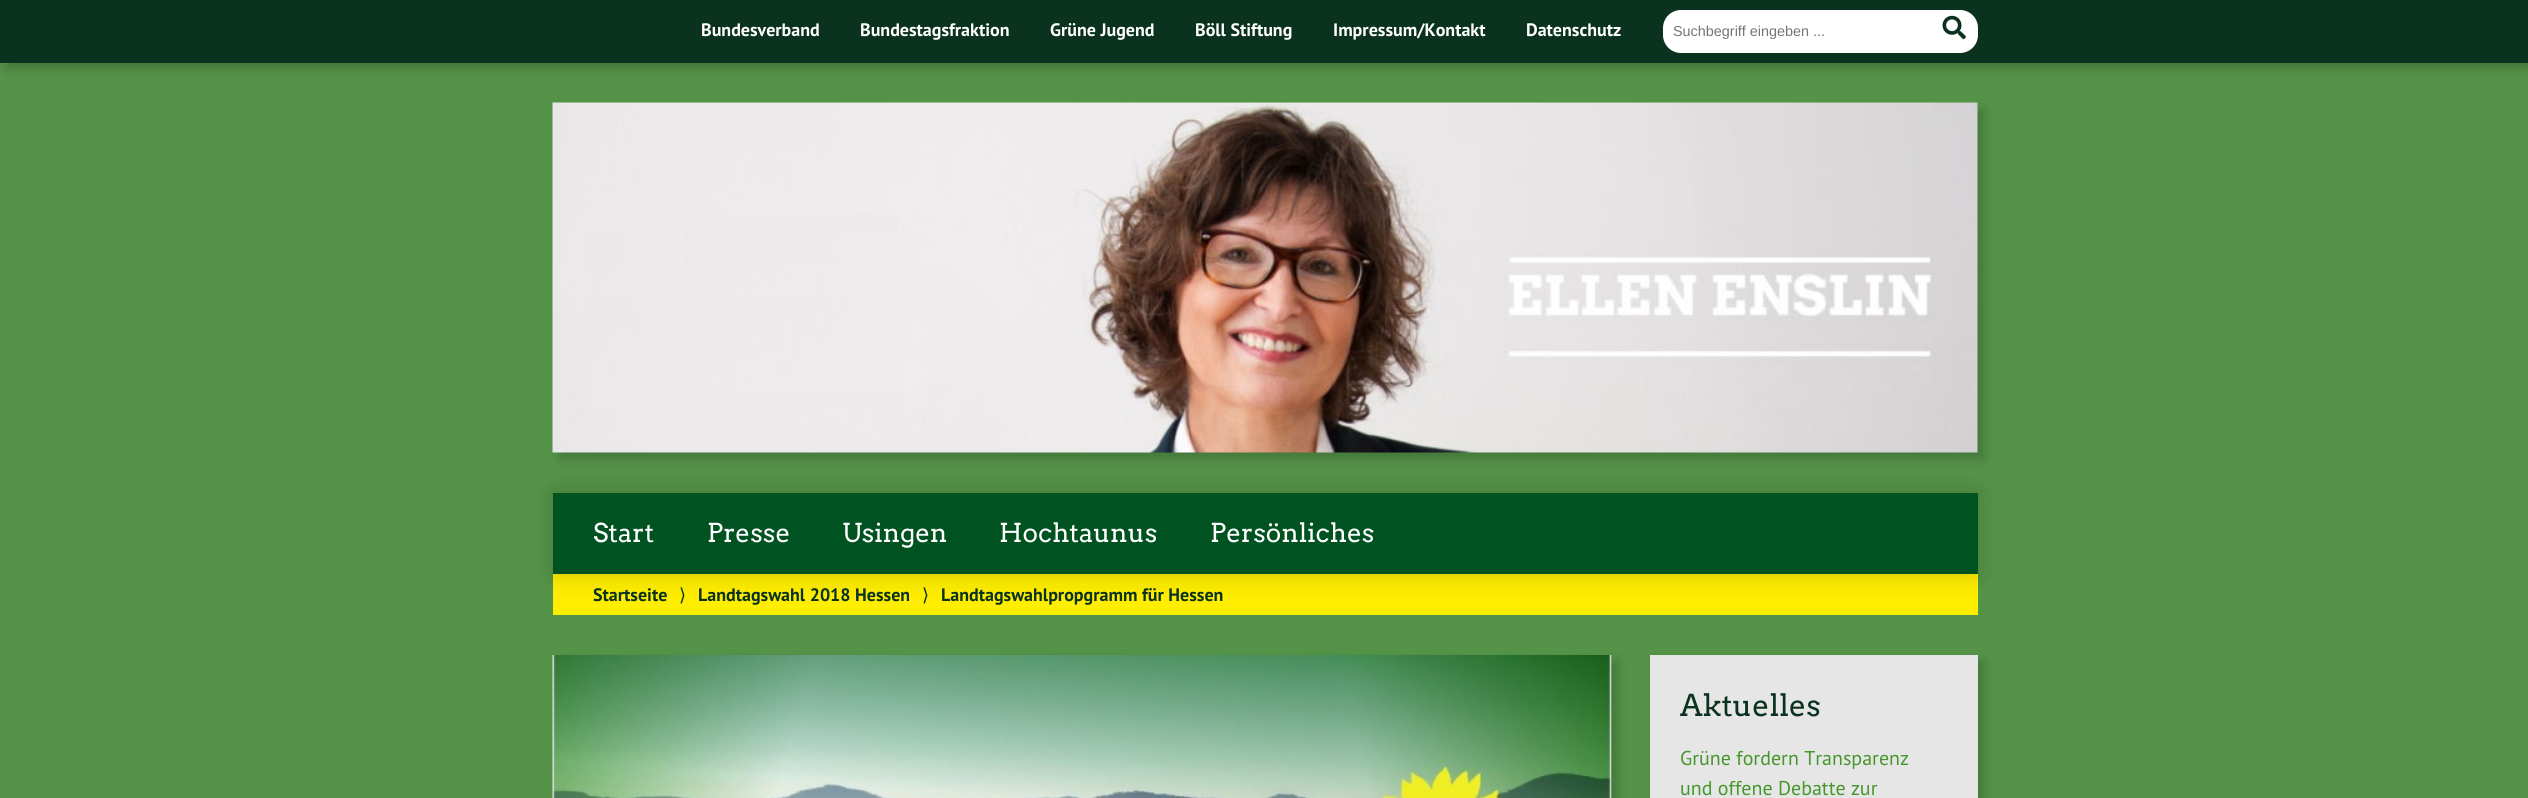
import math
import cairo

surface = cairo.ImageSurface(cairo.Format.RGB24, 2528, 798)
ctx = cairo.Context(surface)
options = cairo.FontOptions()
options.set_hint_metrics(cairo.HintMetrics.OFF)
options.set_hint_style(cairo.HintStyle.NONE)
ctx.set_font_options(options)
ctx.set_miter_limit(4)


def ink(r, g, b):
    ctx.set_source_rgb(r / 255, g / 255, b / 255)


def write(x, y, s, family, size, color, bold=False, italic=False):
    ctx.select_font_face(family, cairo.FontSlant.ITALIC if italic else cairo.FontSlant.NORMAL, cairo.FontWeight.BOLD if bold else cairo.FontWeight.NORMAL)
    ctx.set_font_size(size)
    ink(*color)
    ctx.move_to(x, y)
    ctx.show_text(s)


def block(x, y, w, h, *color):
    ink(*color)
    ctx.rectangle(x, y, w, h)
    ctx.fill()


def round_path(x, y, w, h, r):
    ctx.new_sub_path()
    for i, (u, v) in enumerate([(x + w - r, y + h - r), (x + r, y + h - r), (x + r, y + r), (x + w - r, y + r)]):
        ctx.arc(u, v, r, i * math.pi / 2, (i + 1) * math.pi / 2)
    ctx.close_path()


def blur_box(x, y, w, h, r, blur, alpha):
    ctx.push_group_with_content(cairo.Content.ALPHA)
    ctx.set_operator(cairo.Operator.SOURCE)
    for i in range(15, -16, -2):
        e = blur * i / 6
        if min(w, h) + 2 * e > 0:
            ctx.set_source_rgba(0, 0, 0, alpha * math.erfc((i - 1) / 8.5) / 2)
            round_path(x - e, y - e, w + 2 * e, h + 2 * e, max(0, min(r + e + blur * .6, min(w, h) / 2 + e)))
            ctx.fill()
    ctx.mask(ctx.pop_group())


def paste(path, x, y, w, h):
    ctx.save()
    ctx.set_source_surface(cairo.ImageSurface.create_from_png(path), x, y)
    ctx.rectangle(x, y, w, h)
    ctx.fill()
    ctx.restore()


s1 = dict(family="PT Sans", size=18, color=(255, 255, 255), bold=True)
s2 = dict(family="Liberation Sans", size=14.4, color=(117, 117, 117))
s3 = dict(family="Arvo", size=26, color=(255, 255, 255))
s4 = dict(family="PT Sans", size=18, color=(10, 50, 30), bold=True)
s5 = dict(family="DejaVu Sans", size=18, color=(10, 50, 30))
s6 = dict(family="Arvo", size=30, color=(10, 50, 30))
s7 = dict(family="PT Sans", size=20, color=(70, 150, 43))

ink(85, 148, 72)
ctx.paint()
ink(0, 0, 0)
blur_box(6, 6, 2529, 63, 0, 6, 0.2)
block(0, 0, 2528, 63, 10, 50, 30)
write(701, 36, "Bundesverband", **s1)
write(860, 36, "Bundestagsfraktion", **s1)
write(1050, 36, "Grüne Jugend", **s1)
write(1195, 36, "Böll Stiftung", **s1)
write(1333, 36, "Impressum/Kontakt", **s1)
write(1526, 36, "Datenschutz", **s1)
round_path(1663, 10, 315, 43, 18)
ctx.fill()
write(1673, 36, "Suchbegriff eingeben ...", **s2)
paste("pic1.png", 1942, 15, 24, 25)
ink(0, 0, 0)
blur_box(559, 109, 1425, 350, 0, 6, 0.2)
paste("pic2.png", 552, 102, 1426, 351)
block(553, 574, 1425, 41, 255, 238, 0)
ink(0, 0, 0)
blur_box(553, 493, 1425, 81, 0, 12.5, 0.2)
block(553, 493, 1425, 81, 0, 82, 33)
write(593, 542, "Start", **s3)
write(707, 542, "Presse", **s3)
write(842, 542, "Usingen", **s3)
write(999, 542, "Hochtaunus", **s3)
write(1210, 542, "Persönliches", **s3)
write(593, 601, "Startseite", **s4)
write(679, 601, "⟩", **s5)
write(698, 601, "Landtagswahl 2018 Hessen", **s4)
write(922, 601, "⟩", **s5)
write(941, 601, "Landtagswahlpropgramm für Hessen", **s4)
ink(0, 0, 0)
blur_box(559, 661, 1059, 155, 0, 6, 0.2)
paste("pic3.png", 552, 655, 1060, 143)
blur_box(1656, 661, 328, 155, 0, 6, 0.2)
block(1650, 655, 328, 143, 230, 230, 230)
write(1680, 716, "Aktuelles", **s6)
write(1680, 765, "Grüne fordern Transparenz", **s7)
write(1680, 795, "und offene Debatte zur", **s7)
surface.write_to_png("screenshot.png")
